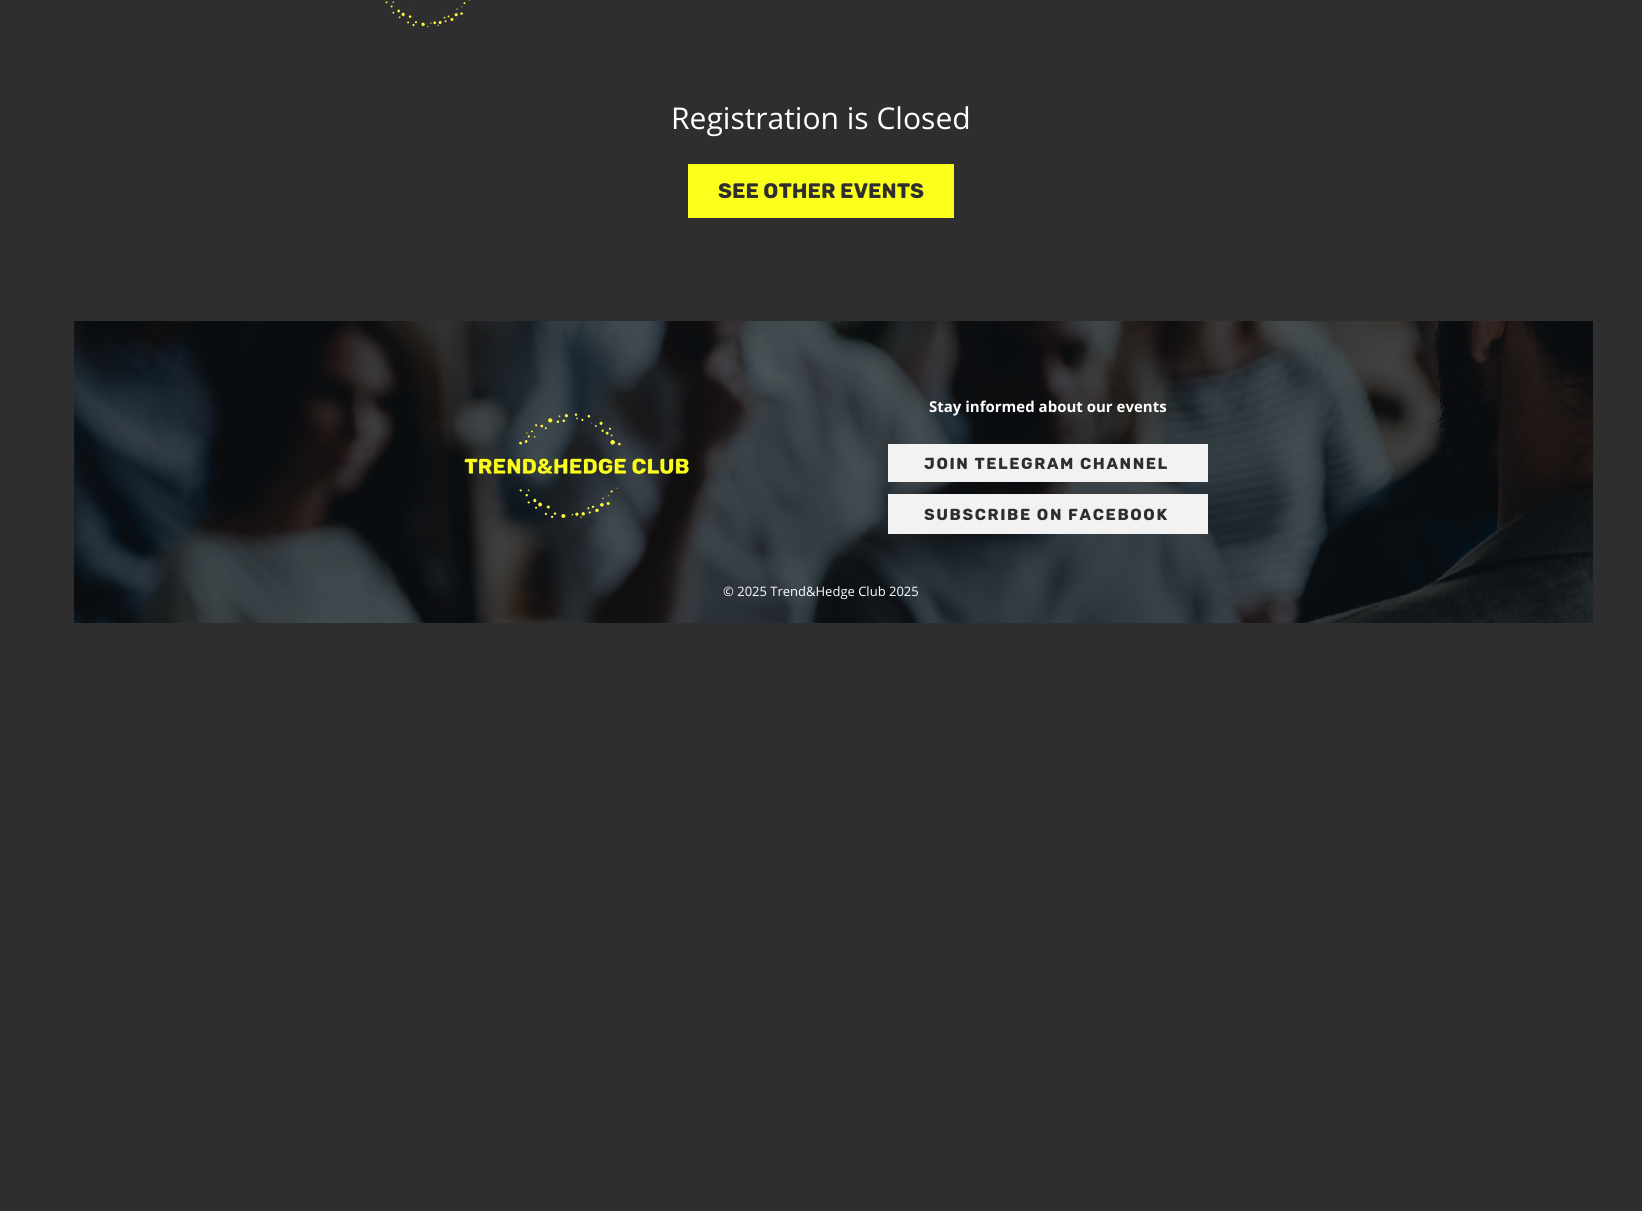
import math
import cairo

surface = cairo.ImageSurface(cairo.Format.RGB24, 1642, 1211)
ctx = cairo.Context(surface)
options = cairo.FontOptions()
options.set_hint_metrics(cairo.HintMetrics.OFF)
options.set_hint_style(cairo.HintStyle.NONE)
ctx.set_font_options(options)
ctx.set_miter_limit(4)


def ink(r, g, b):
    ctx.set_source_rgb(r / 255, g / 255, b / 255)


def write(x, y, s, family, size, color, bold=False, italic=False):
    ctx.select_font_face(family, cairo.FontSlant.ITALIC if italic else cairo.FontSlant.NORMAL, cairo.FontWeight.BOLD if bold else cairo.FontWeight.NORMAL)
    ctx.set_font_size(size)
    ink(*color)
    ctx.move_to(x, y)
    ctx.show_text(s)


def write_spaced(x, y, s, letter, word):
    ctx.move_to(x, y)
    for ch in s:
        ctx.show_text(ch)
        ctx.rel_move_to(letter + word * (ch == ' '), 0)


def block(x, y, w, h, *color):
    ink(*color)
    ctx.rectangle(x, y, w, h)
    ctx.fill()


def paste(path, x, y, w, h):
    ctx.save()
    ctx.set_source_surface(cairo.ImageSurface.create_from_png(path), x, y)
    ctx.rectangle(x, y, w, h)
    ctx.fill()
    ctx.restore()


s1 = dict(family="Open Sans", size=30, color=(255, 255, 255))
s2 = dict(family="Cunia", size=21, color=(47, 46, 46), bold=True)
s3 = dict(family="Open Sans", size=15, color=(255, 255, 255), bold=True)
s4 = dict(family="Open Sans", size=13, color=(255, 255, 255))

ink(47, 46, 46)
ctx.paint()
paste("pic1.png", 385, 0, 85, 27)
write(671, 129, "Registration is Closed", **s1)
block(688, 164, 266, 54, 251, 255, 28)
write(718, 198, "See other events", **s2)
paste("pic2.png", 74, 321, 1519, 302)
write(929, 412, "Stay informed about our events", **s3)
block(888, 444, 320, 38, 242, 242, 242)
ctx.select_font_face("Cunia", cairo.FontSlant.NORMAL, cairo.FontWeight.BOLD)
ctx.set_font_size(16)
ink(47, 46, 46)
write_spaced(924, 469, "Join Telegram channel", 1.6, 0)
block(888, 494, 320, 40, 242, 242, 242)
ink(47, 46, 46)
write_spaced(924, 520, "Subscribe on Facebook", 1.6, 0)
paste("pic3.png", 464, 413, 225, 105)
write(723, 596, "© 2025 Trend&Hedge Club 2025", **s4)
surface.write_to_png("screenshot.png")
